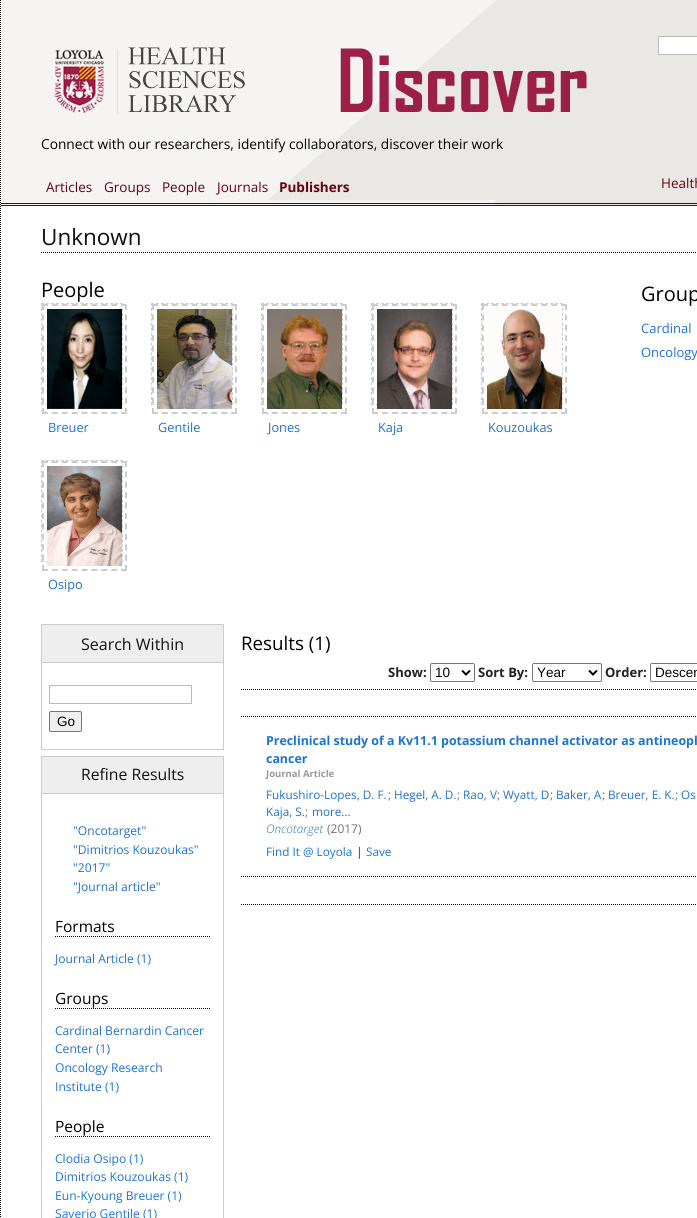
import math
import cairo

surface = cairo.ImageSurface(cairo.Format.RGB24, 697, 1218)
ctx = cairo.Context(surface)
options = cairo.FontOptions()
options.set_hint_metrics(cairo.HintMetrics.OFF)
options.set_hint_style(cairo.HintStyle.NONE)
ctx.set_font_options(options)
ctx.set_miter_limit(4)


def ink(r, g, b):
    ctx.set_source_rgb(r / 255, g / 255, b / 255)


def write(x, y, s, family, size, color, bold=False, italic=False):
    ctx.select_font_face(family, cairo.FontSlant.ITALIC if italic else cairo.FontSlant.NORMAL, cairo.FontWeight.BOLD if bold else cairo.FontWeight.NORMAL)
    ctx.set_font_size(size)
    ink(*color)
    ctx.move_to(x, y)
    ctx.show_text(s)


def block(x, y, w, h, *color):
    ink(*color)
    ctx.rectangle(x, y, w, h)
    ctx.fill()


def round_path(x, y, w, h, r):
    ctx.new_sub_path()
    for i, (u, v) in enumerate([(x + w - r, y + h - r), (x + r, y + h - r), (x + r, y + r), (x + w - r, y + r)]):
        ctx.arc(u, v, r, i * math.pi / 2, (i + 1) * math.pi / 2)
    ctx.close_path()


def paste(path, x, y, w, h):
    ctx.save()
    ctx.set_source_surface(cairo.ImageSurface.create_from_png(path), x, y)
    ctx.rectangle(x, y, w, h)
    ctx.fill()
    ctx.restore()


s1 = dict(family="Open Sans", size=13.75, color=(0, 0, 0))
s2 = dict(family="Open Sans", size=13.5, color=(104, 0, 19))
s3 = dict(family="Open Sans", size=13.5, color=(104, 0, 19), bold=True)
s4 = dict(family="Open Sans", size=22.5, color=(17, 17, 17))
s5 = dict(family="Open Sans", size=20, color=(0, 0, 0))
s6 = dict(family="Open Sans", size=12.75, color=(28, 117, 205))
s7 = dict(family="Open Sans", size=13, color=(28, 117, 205))
s8 = dict(family="Open Sans", size=16, color=(17, 17, 17))
s9 = dict(family="Liberation Sans", size=13.5, color=(0, 0, 0))
s10 = dict(family="Open Sans", size=15.75, color=(17, 17, 17))
s11 = dict(family="Open Sans", size=12.1, color=(28, 117, 205))
s12 = dict(family="Open Sans", size=15.5, color=(0, 0, 0))
s13 = dict(family="Open Sans", size=18.75, color=(0, 0, 0))
s14 = dict(family="Open Sans", size=13, color=(34, 34, 34), bold=True)
s15 = dict(family="Open Sans", size=12.4, color=(28, 117, 205), bold=True)
s16 = dict(family="Open Sans", size=9.5, color=(153, 153, 153), bold=True)
s17 = dict(family="Open Sans", size=11.75, color=(28, 117, 205))
s18 = dict(family="Open Sans", size=12, color=(115, 115, 115))
s19 = dict(family="Open Sans Light", size=11.75, color=(28, 117, 205), italic=True)
s20 = dict(family="Open Sans", size=12, color=(34, 34, 34))

ink(255, 255, 255)
ctx.paint()
ctx.new_path()
ctx.move_to(0.5, 0)
ctx.line_to(0.5, 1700)
ink(0, 0, 0)
ctx.set_line_width(1)
ctx.set_dash([1, 1])
ctx.stroke()
paste("pic1.png", 1, 0, 696, 205)
block(1, 203, 696, 1, 104, 0, 19)
block(1, 205, 696, 1, 104, 0, 19)
paste("pic2.png", 54, 47, 533, 67)
ink(255, 255, 255)
ctx.rectangle(658.5, 36.5, 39, 18)
ctx.fill_preserve()
ink(187, 187, 187)
ctx.set_dash([])
ctx.stroke()
write(41, 149, "Connect with our researchers, identify collaborators, discover their work", **s1)
write(46, 192, "Articles", **s2)
write(104, 192, "Groups", **s2)
write(162, 192, "People", **s2)
write(217, 192, "Journals", **s2)
write(279, 192, "Publishers", **s3)
write(661, 188, "Health", **s2)
ctx.new_path()
ctx.move_to(41, 252.5)
ctx.line_to(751, 252.5)
ink(0, 0, 0)
ctx.set_dash([1, 1])
ctx.stroke()
write(41, 245, "Unknown", **s4)
write(41, 297, "People", **s5)
ctx.new_path()
ctx.move_to(41, 303.5)
ctx.line_to(123, 303.5)
ink(204, 204, 204)
ctx.set_dash([3, 1.94])
ctx.stroke()
ctx.new_path()
ctx.move_to(122.5, 303)
ctx.line_to(122.5, 405)
ctx.set_dash([3, 1.95])
ctx.stroke()
ctx.new_path()
ctx.move_to(41, 404.5)
ctx.line_to(123, 404.5)
ctx.set_dash([3, 1.94])
ctx.stroke()
ctx.new_path()
ctx.move_to(41.5, 303)
ctx.line_to(41.5, 405)
ctx.set_dash([3, 1.95])
ctx.stroke()
ctx.new_path()
ctx.move_to(42, 305)
ctx.line_to(127, 305)
ctx.set_line_width(2)
ctx.set_dash([6, 3.88])
ctx.stroke()
ctx.new_path()
ctx.move_to(126, 304)
ctx.line_to(126, 414)
ctx.set_dash([6, 4.4])
ctx.stroke()
ctx.new_path()
ctx.move_to(42, 413)
ctx.line_to(127, 413)
ctx.set_dash([6, 3.88])
ctx.stroke()
ctx.new_path()
ctx.move_to(43, 304)
ctx.line_to(43, 414)
ctx.set_dash([6, 4.4])
ctx.stroke()
paste("pic3.png", 47, 309, 75, 100)
write(48, 432, "Breuer", **s6)
ctx.new_path()
ctx.move_to(151, 303.5)
ctx.line_to(233, 303.5)
ink(204, 204, 204)
ctx.set_line_width(1)
ctx.set_dash([3, 1.94])
ctx.stroke()
ctx.new_path()
ctx.move_to(232.5, 303)
ctx.line_to(232.5, 405)
ctx.set_dash([3, 1.95])
ctx.stroke()
ctx.new_path()
ctx.move_to(151, 404.5)
ctx.line_to(233, 404.5)
ctx.set_dash([3, 1.94])
ctx.stroke()
ctx.new_path()
ctx.move_to(151.5, 303)
ctx.line_to(151.5, 405)
ctx.set_dash([3, 1.95])
ctx.stroke()
ctx.new_path()
ctx.move_to(152, 305)
ctx.line_to(237, 305)
ctx.set_line_width(2)
ctx.set_dash([6, 3.88])
ctx.stroke()
ctx.new_path()
ctx.move_to(236, 304)
ctx.line_to(236, 414)
ctx.set_dash([6, 4.4])
ctx.stroke()
ctx.new_path()
ctx.move_to(152, 413)
ctx.line_to(237, 413)
ctx.set_dash([6, 3.88])
ctx.stroke()
ctx.new_path()
ctx.move_to(153, 304)
ctx.line_to(153, 414)
ctx.set_dash([6, 4.4])
ctx.stroke()
paste("pic4.png", 157, 309, 75, 100)
write(158, 432, "Gentile", **s6)
ctx.new_path()
ctx.move_to(261, 303.5)
ctx.line_to(343, 303.5)
ink(204, 204, 204)
ctx.set_line_width(1)
ctx.set_dash([3, 1.94])
ctx.stroke()
ctx.new_path()
ctx.move_to(342.5, 303)
ctx.line_to(342.5, 405)
ctx.set_dash([3, 1.95])
ctx.stroke()
ctx.new_path()
ctx.move_to(261, 404.5)
ctx.line_to(343, 404.5)
ctx.set_dash([3, 1.94])
ctx.stroke()
ctx.new_path()
ctx.move_to(261.5, 303)
ctx.line_to(261.5, 405)
ctx.set_dash([3, 1.95])
ctx.stroke()
ctx.new_path()
ctx.move_to(262, 305)
ctx.line_to(347, 305)
ctx.set_line_width(2)
ctx.set_dash([6, 3.88])
ctx.stroke()
ctx.new_path()
ctx.move_to(346, 304)
ctx.line_to(346, 414)
ctx.set_dash([6, 4.4])
ctx.stroke()
ctx.new_path()
ctx.move_to(262, 413)
ctx.line_to(347, 413)
ctx.set_dash([6, 3.88])
ctx.stroke()
ctx.new_path()
ctx.move_to(263, 304)
ctx.line_to(263, 414)
ctx.set_dash([6, 4.4])
ctx.stroke()
paste("pic5.png", 267, 309, 75, 100)
write(268, 432, "Jones", **s6)
ctx.new_path()
ctx.move_to(371, 303.5)
ctx.line_to(453, 303.5)
ink(204, 204, 204)
ctx.set_line_width(1)
ctx.set_dash([3, 1.94])
ctx.stroke()
ctx.new_path()
ctx.move_to(452.5, 303)
ctx.line_to(452.5, 405)
ctx.set_dash([3, 1.95])
ctx.stroke()
ctx.new_path()
ctx.move_to(371, 404.5)
ctx.line_to(453, 404.5)
ctx.set_dash([3, 1.94])
ctx.stroke()
ctx.new_path()
ctx.move_to(371.5, 303)
ctx.line_to(371.5, 405)
ctx.set_dash([3, 1.95])
ctx.stroke()
ctx.new_path()
ctx.move_to(372, 305)
ctx.line_to(457, 305)
ctx.set_line_width(2)
ctx.set_dash([6, 3.88])
ctx.stroke()
ctx.new_path()
ctx.move_to(456, 304)
ctx.line_to(456, 414)
ctx.set_dash([6, 4.4])
ctx.stroke()
ctx.new_path()
ctx.move_to(372, 413)
ctx.line_to(457, 413)
ctx.set_dash([6, 3.88])
ctx.stroke()
ctx.new_path()
ctx.move_to(373, 304)
ctx.line_to(373, 414)
ctx.set_dash([6, 4.4])
ctx.stroke()
paste("pic6.png", 377, 309, 75, 100)
write(378, 432, "Kaja", **s6)
ctx.new_path()
ctx.move_to(481, 303.5)
ctx.line_to(563, 303.5)
ink(204, 204, 204)
ctx.set_line_width(1)
ctx.set_dash([3, 1.94])
ctx.stroke()
ctx.new_path()
ctx.move_to(562.5, 303)
ctx.line_to(562.5, 405)
ctx.set_dash([3, 1.95])
ctx.stroke()
ctx.new_path()
ctx.move_to(481, 404.5)
ctx.line_to(563, 404.5)
ctx.set_dash([3, 1.94])
ctx.stroke()
ctx.new_path()
ctx.move_to(481.5, 303)
ctx.line_to(481.5, 405)
ctx.set_dash([3, 1.95])
ctx.stroke()
ctx.new_path()
ctx.move_to(482, 305)
ctx.line_to(567, 305)
ctx.set_line_width(2)
ctx.set_dash([6, 3.88])
ctx.stroke()
ctx.new_path()
ctx.move_to(566, 304)
ctx.line_to(566, 414)
ctx.set_dash([6, 4.4])
ctx.stroke()
ctx.new_path()
ctx.move_to(482, 413)
ctx.line_to(567, 413)
ctx.set_dash([6, 3.88])
ctx.stroke()
ctx.new_path()
ctx.move_to(483, 304)
ctx.line_to(483, 414)
ctx.set_dash([6, 4.4])
ctx.stroke()
paste("pic7.png", 487, 309, 75, 100)
write(488, 432, "Kouzoukas", **s6)
ctx.new_path()
ctx.move_to(41, 460.5)
ctx.line_to(123, 460.5)
ink(204, 204, 204)
ctx.set_line_width(1)
ctx.set_dash([3, 1.94])
ctx.stroke()
ctx.new_path()
ctx.move_to(122.5, 460)
ctx.line_to(122.5, 562)
ctx.set_dash([3, 1.95])
ctx.stroke()
ctx.new_path()
ctx.move_to(41, 561.5)
ctx.line_to(123, 561.5)
ctx.set_dash([3, 1.94])
ctx.stroke()
ctx.new_path()
ctx.move_to(41.5, 460)
ctx.line_to(41.5, 562)
ctx.set_dash([3, 1.95])
ctx.stroke()
ctx.new_path()
ctx.move_to(42, 462)
ctx.line_to(127, 462)
ctx.set_line_width(2)
ctx.set_dash([6, 3.88])
ctx.stroke()
ctx.new_path()
ctx.move_to(126, 461)
ctx.line_to(126, 571)
ctx.set_dash([6, 4.4])
ctx.stroke()
ctx.new_path()
ctx.move_to(42, 570)
ctx.line_to(127, 570)
ctx.set_dash([6, 3.88])
ctx.stroke()
ctx.new_path()
ctx.move_to(43, 461)
ctx.line_to(43, 571)
ctx.set_dash([6, 4.4])
ctx.stroke()
paste("pic8.png", 47, 466, 75, 100)
write(48, 589, "Osipo", **s6)
write(641, 301, "Group", **s5)
write(641, 333, "Cardinal", **s7)
write(641, 357, "Oncology", **s7)
block(223, 624, 1, 126, 204, 204, 204)
block(41, 749, 183, 1, 204, 204, 204)
block(41, 624, 1, 126, 204, 204, 204)
block(42, 625, 181, 37, 238, 238, 238)
block(42, 624, 181, 1, 204, 204, 204)
block(42, 662, 181, 1, 204, 204, 204)
write(81, 650, "Search Within", **s8)
ctx.rectangle(49.5, 685.5, 142, 18)
ink(187, 187, 187)
ctx.set_line_width(1)
ctx.set_dash([])
ctx.stroke()
ink(239, 239, 239)
round_path(49.5, 711.5, 32, 20, 1.5)
ctx.fill_preserve()
ink(118, 118, 118)
ctx.stroke()
write(57, 726, "Go", **s9)
block(223, 756, 1, 462, 204, 204, 204)
block(41, 756, 1, 462, 204, 204, 204)
block(42, 757, 181, 36, 238, 238, 238)
block(42, 756, 181, 1, 204, 204, 204)
block(42, 793, 181, 1, 204, 204, 204)
write(81, 780, "Refine Results", **s10)
write(73, 835, "\"Oncotarget\"", **s11)
write(73, 854, "\"Dimitrios Kouzoukas\"", **s11)
write(73, 872, "\"2017\"", **s11)
write(73, 891, "\"Journal article\"", **s11)
ctx.new_path()
ctx.move_to(55, 936.5)
ctx.line_to(211, 936.5)
ink(0, 0, 0)
ctx.set_dash([1, 1])
ctx.stroke()
write(55, 932, "Formats", **s12)
write(55, 963, "Journal Article (1)", **s11)
ctx.new_path()
ctx.move_to(55, 1008.5)
ctx.line_to(211, 1008.5)
ink(0, 0, 0)
ctx.stroke()
write(55, 1004, "Groups", **s12)
write(55, 1035, "Cardinal Bernardin Cancer", **s11)
write(55, 1053, "Center (1)", **s11)
write(55, 1072, "Oncology Research", **s11)
write(55, 1091, "Institute (1)", **s11)
ctx.new_path()
ctx.move_to(55, 1136.5)
ctx.line_to(211, 1136.5)
ink(0, 0, 0)
ctx.stroke()
write(55, 1132, "People", **s12)
write(55, 1163, "Clodia Osipo (1)", **s11)
write(55, 1181, "Dimitrios Kouzoukas (1)", **s11)
write(55, 1200, "Eun-Kyoung Breuer (1)", **s11)
write(55, 1218, "Saverio Gentile (1)", **s11)
write(241, 650, "Results (1)", **s13)
write(388, 677, "Show:", **s14)
round_path(430.5, 663.5, 44, 18, 1.5)
ink(118, 118, 118)
ctx.set_dash([])
ctx.stroke()
ctx.new_path()
ctx.move_to(462, 670.5)
ctx.line_to(466, 674.5)
ctx.line_to(470, 670.5)
ink(0, 0, 0)
ctx.set_line_width(2)
ctx.stroke()
write(435, 677, "10", **s9)
write(478, 677, "Sort By:", **s14)
round_path(532.5, 663.5, 69, 18, 1.5)
ink(118, 118, 118)
ctx.set_line_width(1)
ctx.stroke()
ctx.new_path()
ctx.move_to(589, 670.5)
ctx.line_to(593, 674.5)
ctx.line_to(597, 670.5)
ink(0, 0, 0)
ctx.set_line_width(2)
ctx.stroke()
write(537, 677, "Year", **s9)
write(605, 677, "Order:", **s14)
round_path(650.5, 663.5, 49, 18, 1.5)
ink(118, 118, 118)
ctx.set_line_width(1)
ctx.stroke()
write(655, 677, "Descen", **s9)
ctx.new_path()
ctx.move_to(241, 689.5)
ctx.line_to(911, 689.5)
ctx.set_dash([1, 1])
ctx.stroke()
ctx.new_path()
ctx.move_to(241, 716.5)
ctx.line_to(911, 716.5)
ctx.stroke()
write(266, 745, "Preclinical study of a Kv11.1 potassium channel activator as antineopl", **s15)
write(266, 763, "cancer", **s15)
write(266, 777, "Journal Article", **s16)
write(266, 799, "Fukushiro-Lopes, D. F.", **s17)
write(388, 799, ";", **s18)
write(394, 799, "Hegel, A. D.", **s17)
write(457, 799, ";", **s18)
write(463, 799, "Rao, V", **s17)
write(497, 799, ";", **s18)
write(503, 799, "Wyatt, D", **s17)
write(550, 799, ";", **s18)
write(556, 799, "Baker, A", **s17)
write(602, 799, ";", **s18)
write(608, 799, "Breuer, E. K.", **s17)
write(675, 799, ";", **s18)
write(681, 799, "Os", **s17)
write(266, 816, "Kaja, S.", **s17)
write(305, 816, ";", **s18)
write(312, 816, "more...", **s17)
write(266, 833, "Oncotarget", **s19)
write(327, 833, "(2017)", **s18)
write(266, 856, "Find It @ Loyola", **s17)
write(356, 856, "|", **s20)
write(366, 856, "Save", **s17)
ctx.new_path()
ctx.move_to(241, 876.5)
ctx.line_to(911, 876.5)
ink(0, 0, 0)
ctx.stroke()
ctx.new_path()
ctx.move_to(241, 904.5)
ctx.line_to(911, 904.5)
ctx.stroke()
surface.write_to_png("screenshot.png")
